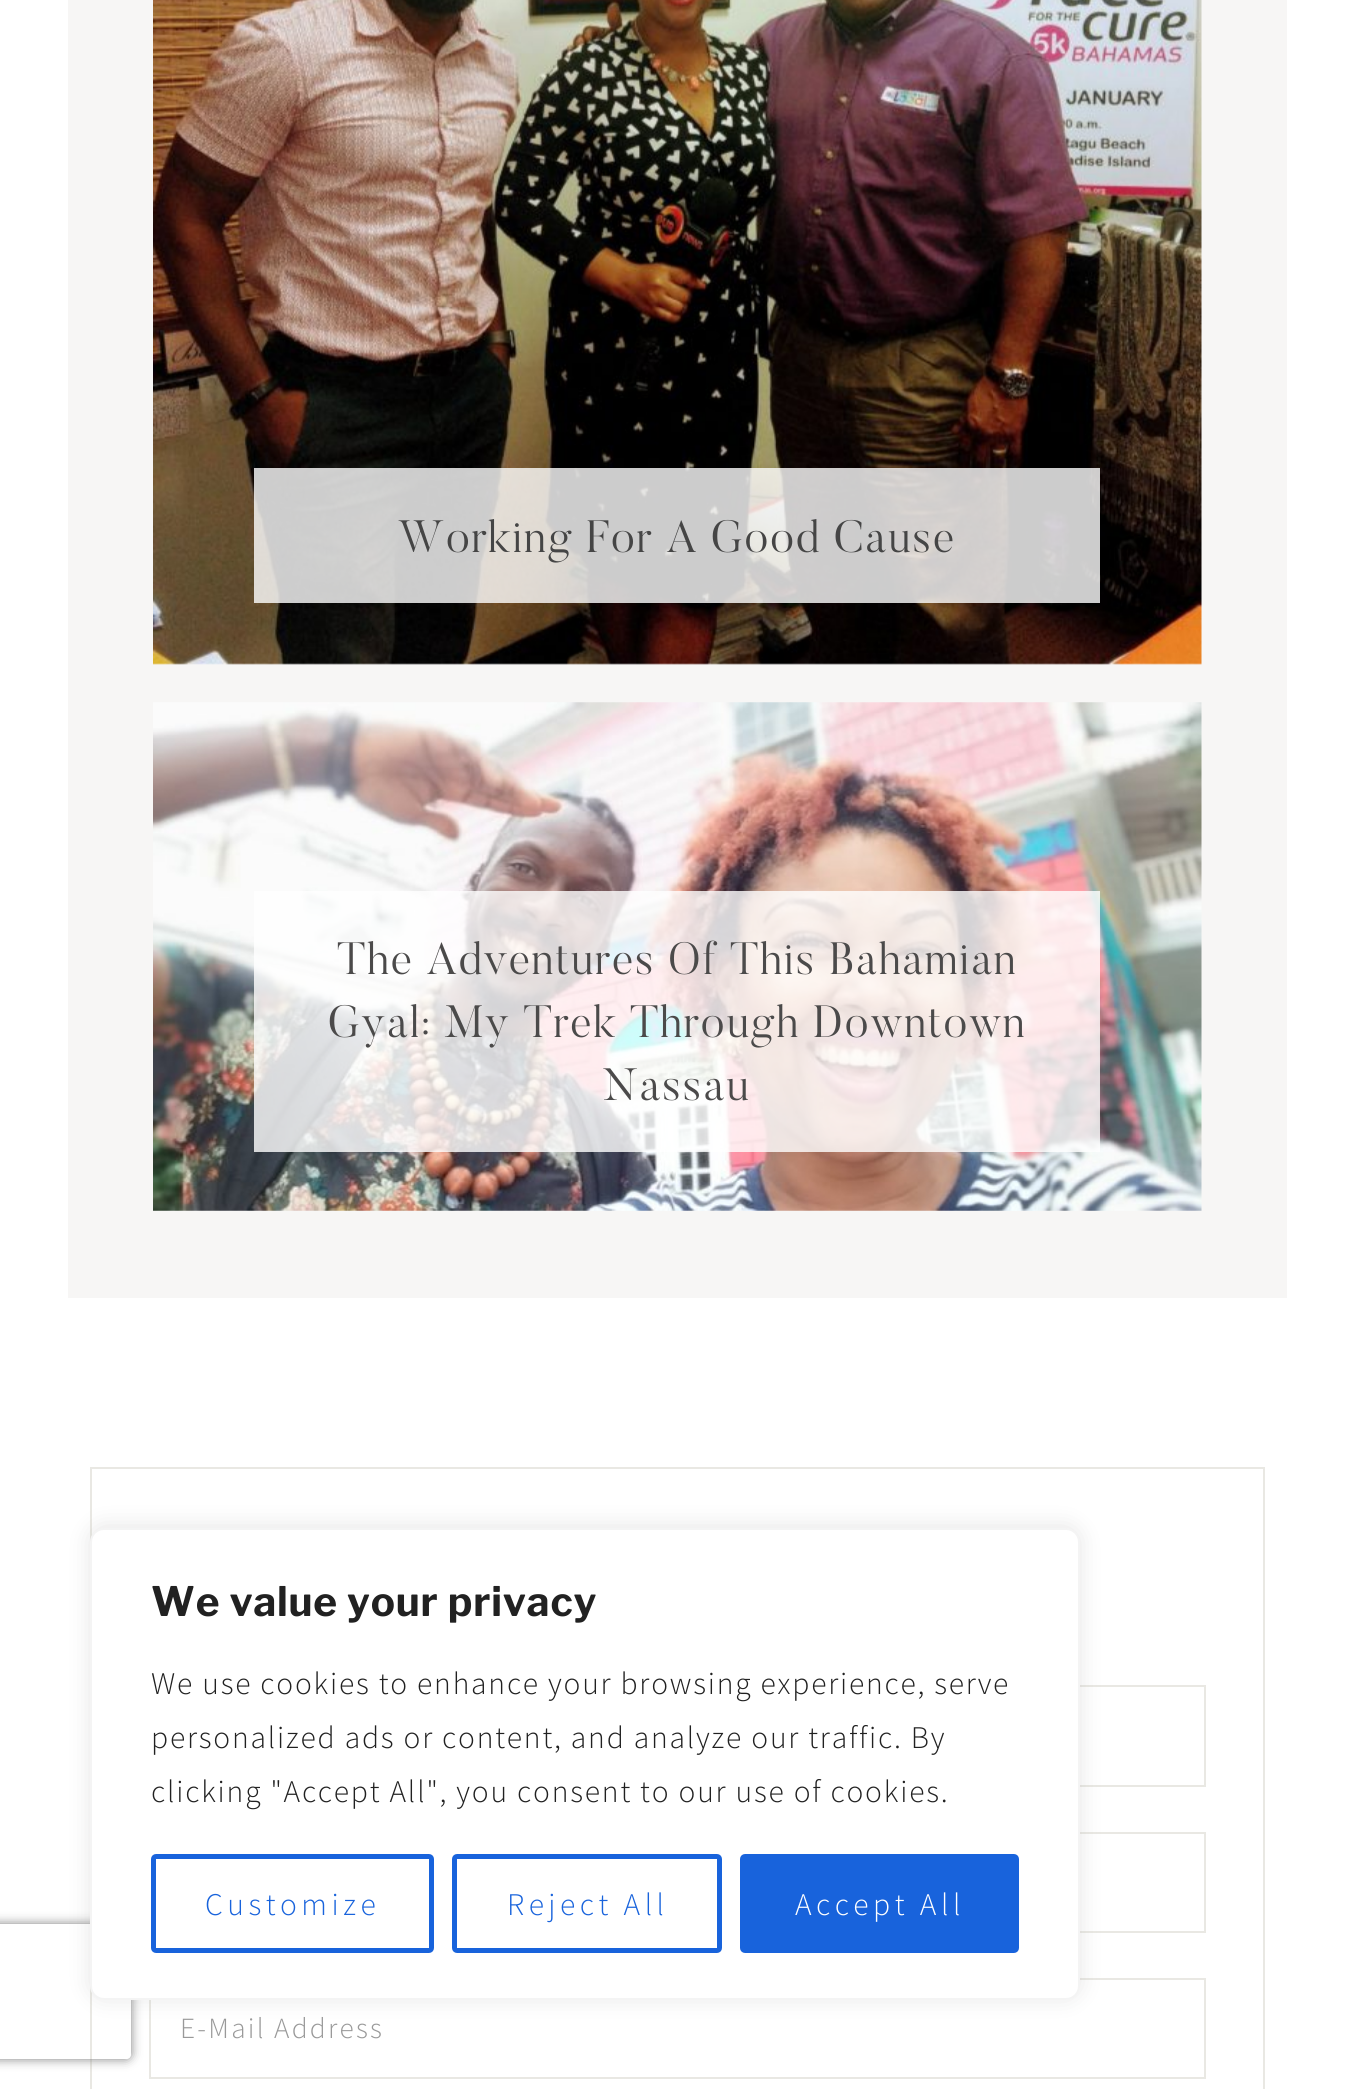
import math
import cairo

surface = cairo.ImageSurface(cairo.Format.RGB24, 1353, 2089)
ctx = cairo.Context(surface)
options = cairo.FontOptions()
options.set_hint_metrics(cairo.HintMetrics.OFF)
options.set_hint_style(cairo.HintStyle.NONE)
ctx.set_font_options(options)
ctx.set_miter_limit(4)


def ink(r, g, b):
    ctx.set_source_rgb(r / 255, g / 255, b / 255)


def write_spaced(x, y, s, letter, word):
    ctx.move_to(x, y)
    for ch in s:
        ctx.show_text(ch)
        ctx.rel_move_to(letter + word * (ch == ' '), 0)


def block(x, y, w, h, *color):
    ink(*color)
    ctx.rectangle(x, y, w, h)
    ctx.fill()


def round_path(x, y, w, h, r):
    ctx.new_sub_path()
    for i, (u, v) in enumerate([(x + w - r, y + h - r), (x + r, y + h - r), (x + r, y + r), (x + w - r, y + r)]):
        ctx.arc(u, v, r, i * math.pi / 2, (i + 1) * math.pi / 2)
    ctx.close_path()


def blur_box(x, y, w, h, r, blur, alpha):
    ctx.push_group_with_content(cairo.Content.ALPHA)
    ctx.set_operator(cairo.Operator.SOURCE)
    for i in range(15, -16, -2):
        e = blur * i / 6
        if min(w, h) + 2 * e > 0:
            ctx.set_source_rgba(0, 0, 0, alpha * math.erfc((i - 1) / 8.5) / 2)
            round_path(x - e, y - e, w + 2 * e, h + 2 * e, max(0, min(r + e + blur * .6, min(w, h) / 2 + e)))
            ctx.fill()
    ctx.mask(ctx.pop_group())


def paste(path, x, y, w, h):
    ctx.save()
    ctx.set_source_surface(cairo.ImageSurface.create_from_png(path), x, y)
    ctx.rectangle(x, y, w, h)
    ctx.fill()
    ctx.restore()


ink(255, 255, 255)
ctx.paint()
block(68, 0, 1219, 1298, 247, 246, 245)
paste("pic1.png", 153, 0, 1049, 665)
ctx.set_source_rgba(1, 1, 1, 0.8)
ctx.rectangle(254, 468, 846, 135)
ctx.fill()
ctx.select_font_face("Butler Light")
ctx.set_font_size(45)
ink(69, 69, 69)
write_spaced(398, 552, "Working For A Good Cause", 1.8, 0)
paste("pic2.png", 153, 702, 1049, 509)
ctx.set_source_rgba(1, 1, 1, 0.8)
ctx.rectangle(254, 891, 846, 261)
ctx.fill()
ink(75, 74, 74)
write_spaced(337, 974, "The Adventures Of This Bahamian", 1.8, 0)
write_spaced(328, 1037, "Gyal: My Trek Through Downtown", 1.8, 0)
write_spaced(603, 1100, "Nassau", 1.8, 0)
ctx.rectangle(91, 1468, 1173, 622)
ink(233, 232, 227)
ctx.stroke()
ctx.rectangle(150, 1686, 1055, 100)
ctx.stroke()
ctx.rectangle(150, 1833, 1055, 99)
ctx.stroke()
ctx.rectangle(150, 1979, 1055, 99)
ctx.stroke()
ink(172, 171, 171)
blur_box(90, 1526, 990, 472, 14, 11, 0.3)
ctx.save()
ctx.set_fill_rule(cairo.FillRule.EVEN_ODD)
ctx.new_path()
ctx.move_to(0, 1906)
ctx.line_to(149, 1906)
ctx.line_to(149, 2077)
ctx.line_to(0, 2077)
ctx.close_path()
ctx.move_to(-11, 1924)
ctx.line_to(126, 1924)
ctx.curve_to(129, 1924, 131, 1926, 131, 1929)
ctx.line_to(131, 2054)
ctx.curve_to(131, 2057, 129, 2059, 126, 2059)
ctx.line_to(-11, 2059)
ctx.curve_to(-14, 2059, -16, 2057, -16, 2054)
ctx.line_to(-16, 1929)
ctx.curve_to(-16, 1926, -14, 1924, -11, 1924)
ctx.close_path()
ctx.clip()
ink(128, 128, 128)
blur_box(-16, 1924, 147, 135, 5, 5.5, 1)
ctx.restore()
ink(255, 255, 255)
round_path(91, 1529, 988, 470, 13)
ctx.fill_preserve()
ink(244, 244, 244)
ctx.stroke()
ctx.select_font_face("Libre Franklin", cairo.FontSlant.NORMAL, cairo.FontWeight.BOLD)
ctx.set_font_size(40.5)
ink(33, 33, 33)
write_spaced(151, 1616, "We value your privacy", 0.8, 0)
ctx.select_font_face("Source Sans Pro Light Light")
ctx.set_font_size(31.5)
write_spaced(151, 1694, "We use cookies to enhance your browsing experience, serve", 1.8, 0)
write_spaced(151, 1748, "personalized ads or content, and analyze our traffic. By", 1.8, 0)
write_spaced(151, 1802, "clicking \"Accept All\", you consent to our use of cookies.", 1.8, 0)
round_path(153.5, 1856.5, 278, 94, 2.5)
ink(24, 99, 220)
ctx.set_line_width(5)
ctx.stroke()
write_spaced(205, 1915, "Customize", 4.5, 0)
round_path(454.5, 1856.5, 265, 94, 2.5)
ctx.stroke()
write_spaced(507, 1915, "Reject All", 4.5, 0)
round_path(742.5, 1856.5, 274, 94, 2.5)
ctx.fill_preserve()
ctx.stroke()
ink(255, 255, 255)
write_spaced(795, 1915, "Accept All", 4.5, 0)
ctx.set_font_size(29.25)
ink(153, 153, 153)
write_spaced(180, 2038, "E-Mail Address", 2.25, 0)
surface.write_to_png("screenshot.png")
